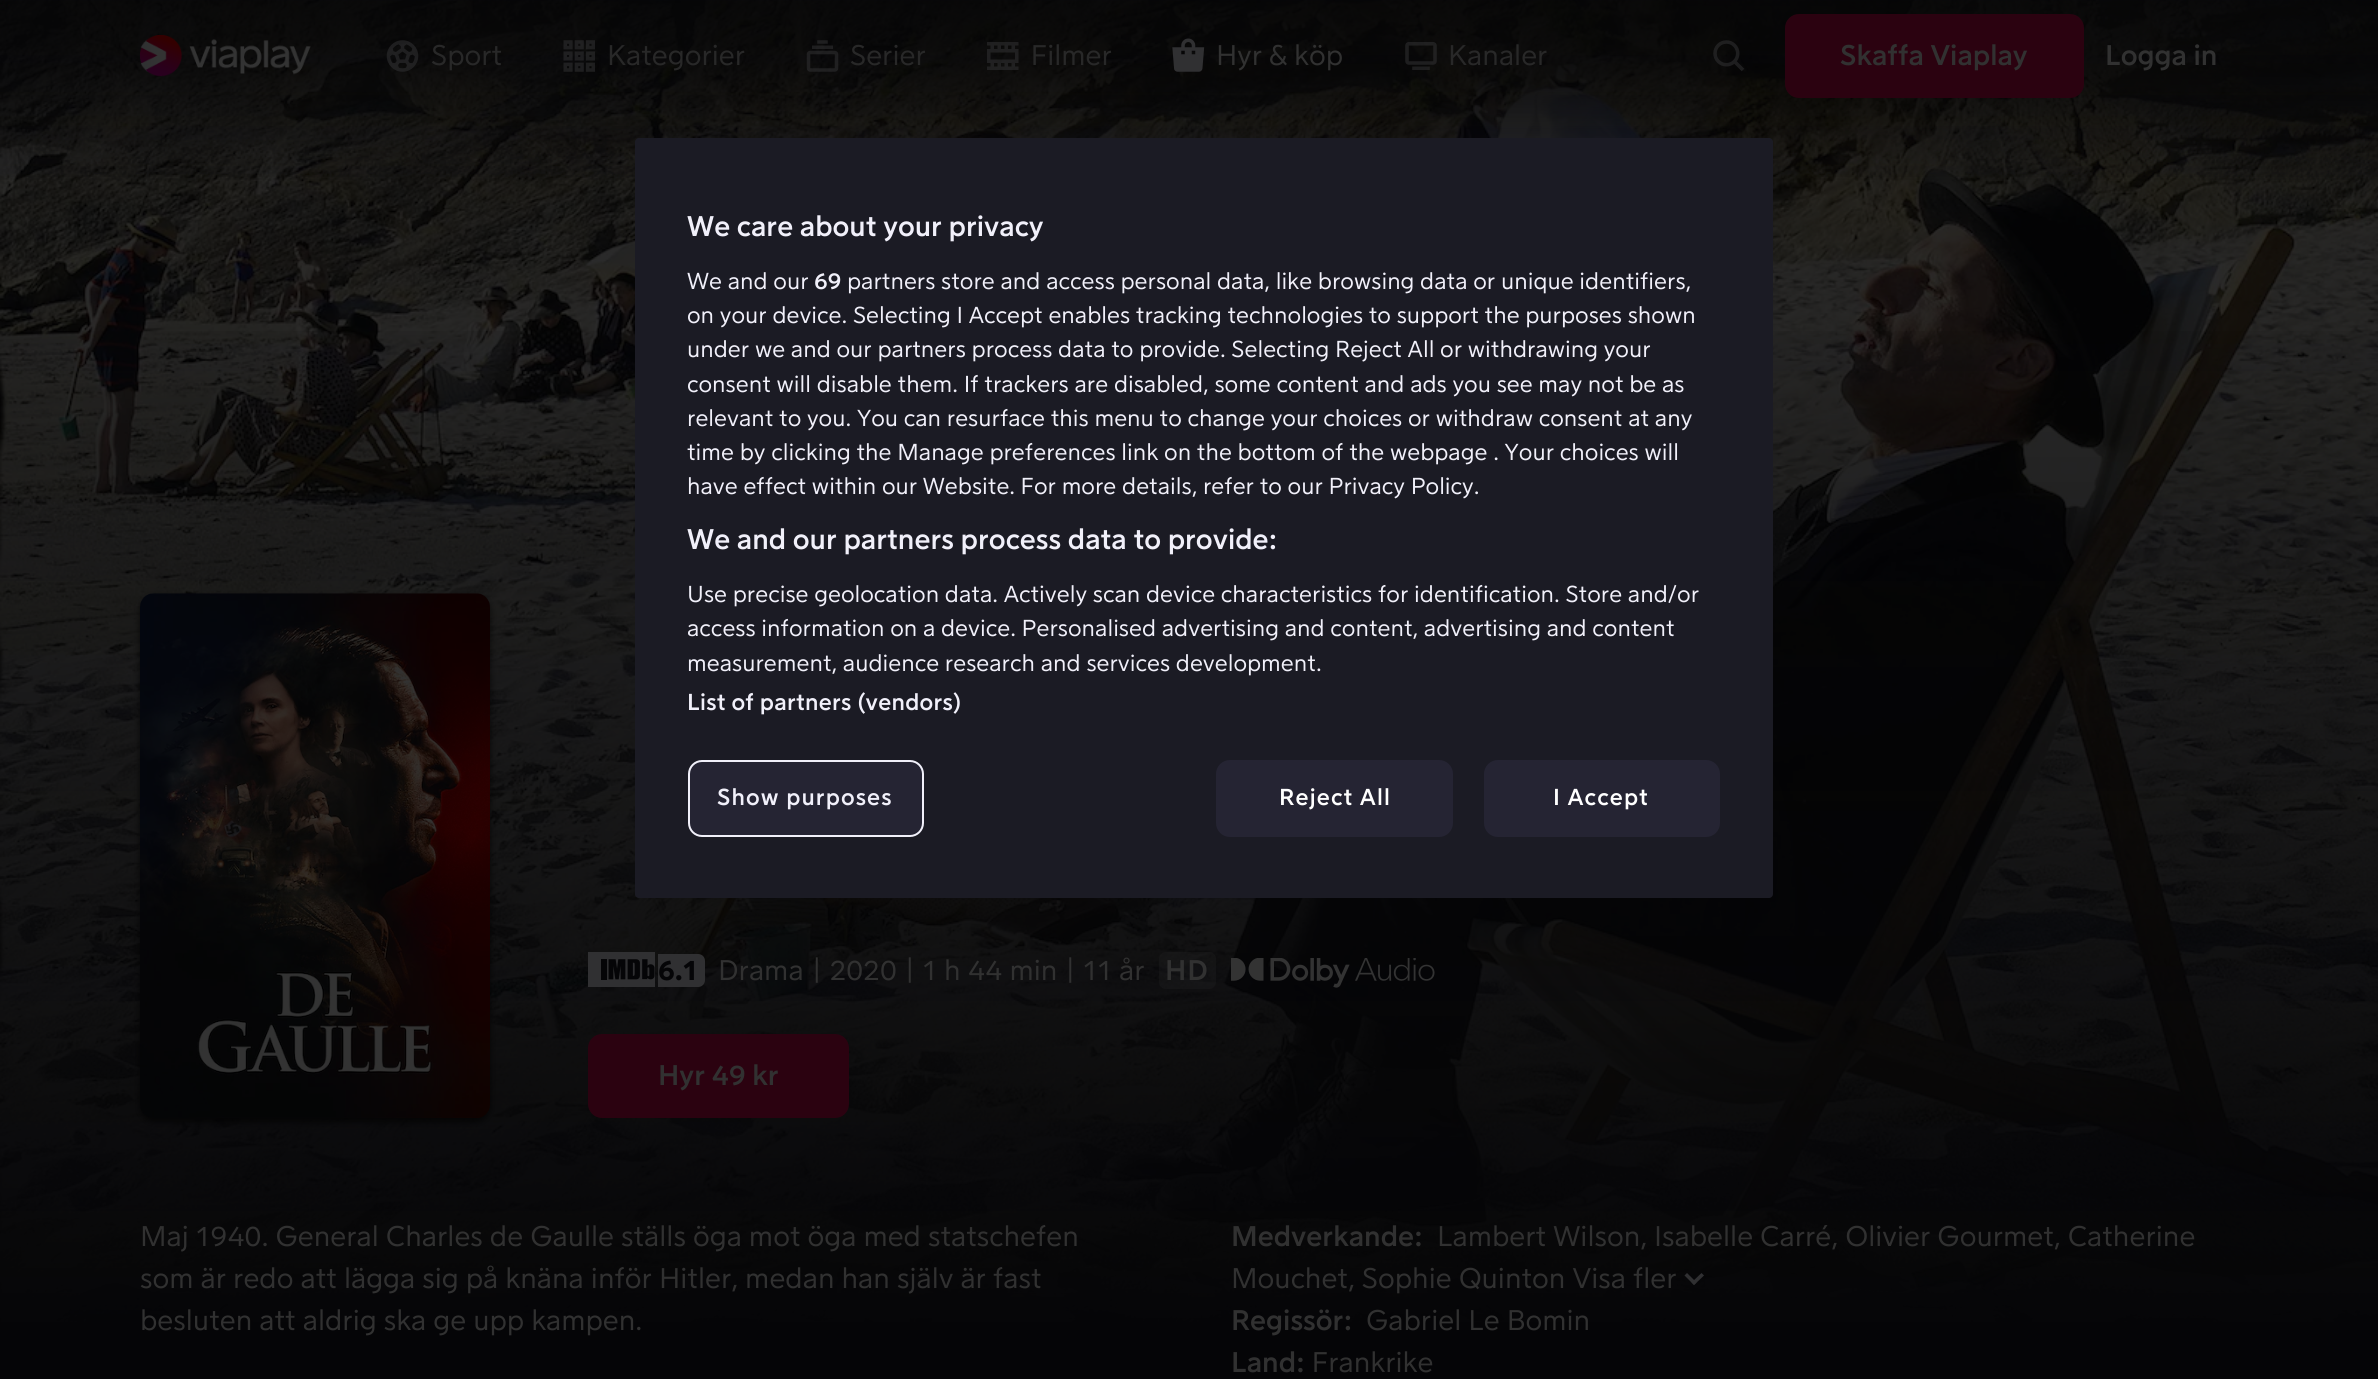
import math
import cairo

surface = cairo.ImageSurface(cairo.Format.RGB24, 2378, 1379)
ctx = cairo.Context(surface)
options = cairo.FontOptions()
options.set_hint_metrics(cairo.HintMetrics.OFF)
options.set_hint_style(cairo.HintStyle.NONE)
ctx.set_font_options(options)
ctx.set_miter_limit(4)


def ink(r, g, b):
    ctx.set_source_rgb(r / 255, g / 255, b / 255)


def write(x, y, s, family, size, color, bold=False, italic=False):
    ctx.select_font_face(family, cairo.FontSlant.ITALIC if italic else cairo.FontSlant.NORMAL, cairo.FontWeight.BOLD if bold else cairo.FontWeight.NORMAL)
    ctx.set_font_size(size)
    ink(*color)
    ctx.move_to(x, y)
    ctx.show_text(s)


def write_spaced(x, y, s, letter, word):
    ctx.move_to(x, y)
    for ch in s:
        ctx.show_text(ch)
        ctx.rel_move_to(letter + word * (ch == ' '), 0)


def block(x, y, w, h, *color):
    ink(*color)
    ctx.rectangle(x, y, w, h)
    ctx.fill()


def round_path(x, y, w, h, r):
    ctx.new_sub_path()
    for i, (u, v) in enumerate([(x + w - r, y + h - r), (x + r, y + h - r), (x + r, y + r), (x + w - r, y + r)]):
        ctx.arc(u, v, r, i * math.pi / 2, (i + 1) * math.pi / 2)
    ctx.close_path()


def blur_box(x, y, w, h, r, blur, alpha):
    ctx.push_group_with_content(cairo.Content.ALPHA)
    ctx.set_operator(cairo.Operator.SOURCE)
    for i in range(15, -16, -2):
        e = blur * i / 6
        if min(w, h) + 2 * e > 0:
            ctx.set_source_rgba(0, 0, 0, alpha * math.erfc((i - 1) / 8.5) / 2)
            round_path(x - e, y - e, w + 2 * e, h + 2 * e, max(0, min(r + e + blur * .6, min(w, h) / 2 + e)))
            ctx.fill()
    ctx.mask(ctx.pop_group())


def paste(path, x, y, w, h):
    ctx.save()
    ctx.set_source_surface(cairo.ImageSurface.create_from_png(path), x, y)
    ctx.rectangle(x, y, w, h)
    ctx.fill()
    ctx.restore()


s1 = dict(family="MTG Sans", size=28, color=(40, 40, 40))
s2 = dict(family="MTG Sans", size=28, color=(49, 49, 49))
s3 = dict(family="MTG Sans", size=28, color=(49, 49, 49), bold=True)
s4 = dict(family="MTG Sans Black", size=28, color=(5, 5, 7))
s5 = dict(family="MTG Sans", size=28, color=(241, 240, 250), bold=True)
s6 = dict(family="MTG Sans", size=22.75, color=(241, 240, 250))
s7 = dict(family="MTG Sans", size=22.75, color=(241, 240, 250), bold=True)

ink(5, 5, 7)
ctx.paint()
paste("pic9.png", 0, 0, 2378, 1331)
gradient = cairo.LinearGradient(1189, -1.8, 1189, 1337)
gradient.add_color_stop_rgba(0, 0.02, 0.02, 0.027, 0.19)
gradient.add_color_stop_rgba(0.2, 0.02, 0.02, 0.027, 0)
ctx.set_source(gradient)
ctx.rectangle(0, 0, 2378, 180)
ctx.fill()
gradient = cairo.LinearGradient(1189, 0, 1189, 217)
gradient.add_color_stop_rgba(0, 0.02, 0.02, 0.027, 0.8)
gradient.add_color_stop_rgba(0.2, 0.02, 0.02, 0.027, 0.73)
gradient.add_color_stop_rgba(0.33, 0.02, 0.02, 0.027, 0.62)
gradient.add_color_stop_rgba(0.47, 0.02, 0.02, 0.027, 0.45)
gradient.add_color_stop_rgba(0.6, 0.02, 0.02, 0.027, 0.27)
gradient.add_color_stop_rgba(0.73, 0.02, 0.02, 0.027, 0.12)
gradient.add_color_stop_rgba(0.87, 0.02, 0.02, 0.027, 0.03)
gradient.add_color_stop_rgba(1, 0.02, 0.02, 0.027, 0)
ctx.set_source(gradient)
ctx.rectangle(0, 0, 2378, 177)
ctx.fill()
paste("pic1.png", 140, 35, 171, 42)
paste("pic2.png", 386, 40, 33, 32)
write(431, 65, "Sport", **s1)
paste("pic3.png", 563, 40, 32, 32)
write(607, 65, "Kategorier", **s1)
paste("pic4.png", 806, 40, 33, 32)
write(850, 65, "Serier", **s1)
paste("pic5.png", 987, 42, 32, 28)
write(1031, 65, "Filmer", **s1)
paste("pic6.png", 1172, 38, 33, 34)
write(1216, 65, "Hyr & köp", **s2)
paste("pic7.png", 1405, 42, 32, 28)
write(1448, 65, "Kanaler", **s1)
paste("pic8.png", 1713, 40, 32, 32)
ink(43, 2, 16)
round_path(1785, 14, 299, 84, 14)
ctx.fill()
write(1840, 65, "Skaffa Viaplay", **s3)
write(2105, 65, "Logga in", **s3)
gradient = cairo.LinearGradient(1189, 1337, 1189, -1.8)
gradient.add_color_stop_rgba(0, 0.02, 0.02, 0.027, 1)
gradient.add_color_stop_rgba(0.8, 0.02, 0.02, 0.027, 0)
ctx.set_source(gradient)
ctx.rectangle(0, 331, 2378, 1000)
ctx.fill()
ink(0, 0, 0)
blur_box(140, 597, 350, 525, 14, 3.5, 0.68)
paste("pic10.png", 140, 593, 350, 525)
block(588, 952, 67, 35, 48, 48, 50)
ctx.new_path()
ctx.move_to(658, 954)
ctx.line_to(698, 954)
ctx.curve_to(702, 954, 705, 957, 705, 961)
ctx.line_to(705, 980)
ctx.curve_to(705, 984, 702, 987, 698, 987)
ctx.line_to(658, 987)
ctx.close_path()
ctx.fill()
paste("pic11.png", 601, 959, 54, 21)
write(658, 980, "6.1", **s4)
write(718, 980, "Drama", **s2)
write(811, 980, "| 2020", **s2)
write(904, 980, "| 1 h 44 min | 11 år", **s2)
ctx.set_source_rgba(0.2, 0.2, 0.2, 0.19)
round_path(1159, 952, 57, 37, 7)
ctx.fill()
ctx.select_font_face("MTG Sans", cairo.FontSlant.NORMAL, cairo.FontWeight.BOLD)
ink(49, 49, 49)
write_spaced(1165, 980, "HD", 1, 0)
paste("pic12.png", 1231, 958, 204, 30)
ink(43, 2, 16)
round_path(588, 1034, 261, 84, 14)
ctx.fill()
write(658, 1085, "Hyr 49 kr", **s3)
write(140, 1246, "Maj 1940. General Charles de Gaulle ställs öga mot öga med statschefen", **s2)
write(140, 1288, "som är redo att lägga sig på knäna inför Hitler, medan han själv är fast", **s2)
write(140, 1330, "besluten att aldrig ska ge upp kampen.", **s2)
write(1231, 1246, "Medverkande:", **s3)
write(1437, 1246, "Lambert Wilson,", **s2)
write(1654, 1246, "Isabelle Carré, Olivier Gourmet, Catherine", **s2)
write(1231, 1288, "Mouchet, Sophie Quinton Visa fler", **s2)
ink(48, 48, 50)
ctx.new_path()
ctx.move_to(1701.5, 1273)
ctx.line_to(1704, 1275.5)
ctx.line_to(1694, 1285)
ctx.line_to(1691.5, 1282.5)
ctx.close_path()
ctx.fill()
ctx.new_path()
ctx.move_to(1687, 1273)
ctx.line_to(1696.5, 1282.5)
ctx.line_to(1694, 1285)
ctx.line_to(1684.5, 1275.5)
ctx.close_path()
ctx.fill()
write(1231, 1330, "Regissör:", **s3)
write(1366, 1330, "Gabriel Le Bomin", **s2)
write(1231, 1372, "Land:", **s3)
write(1312, 1372, "Frankrike", **s2)
ink(27, 27, 36)
round_path(635, 138, 1138, 760, 4)
ctx.fill()
write(687, 236, "We care about your privacy", **s5)
write(687, 289, "We and our", **s6)
write(814, 289, "69", **s7)
write(847, 289, "partners store and access personal data, like browsing data or unique identifiers,", **s6)
write(687, 323, "on your device. Selecting I Accept enables tracking technologies to support the purposes shown", **s6)
write(687, 357, "under we and our partners process data to provide. Selecting Reject All or withdrawing your", **s6)
write(687, 392, "consent will disable them. If trackers are disabled, some content and ads you see may not be as", **s6)
write(687, 426, "relevant to you. You can resurface this menu to change your choices or withdraw consent at any", **s6)
write(687, 460, "time by clicking the Manage preferences link on the bottom of the webpage . Your choices will", **s6)
write(687, 494, "have effect within our Website. For more details, refer to our Privacy Policy.", **s6)
write(687, 549, "We and our partners process data to provide:", **s5)
write(687, 602, "Use precise geolocation data. Actively scan device characteristics for identification. Store and/or", **s6)
write(687, 636, "access information on a device. Personalised advertising and content, advertising and content", **s6)
write(687, 671, "measurement, audience research and services development.", **s6)
ctx.select_font_face("MTG Sans", cairo.FontSlant.NORMAL, cairo.FontWeight.BOLD)
write_spaced(687, 710, "List of partners (vendors)", 0.25, 0)
ink(37, 36, 51)
round_path(689, 761, 234, 75, 13)
ctx.fill_preserve()
ink(241, 240, 250)
ctx.stroke()
write_spaced(717, 805, "Show purposes", 1.1, 0)
ink(37, 36, 51)
round_path(1217, 761, 235, 75, 13)
ctx.fill_preserve()
ctx.stroke()
ink(255, 255, 255)
write_spaced(1279, 805, "Reject All", 1.1, 0)
ink(37, 36, 51)
round_path(1485, 761, 234, 75, 13)
ctx.fill_preserve()
ctx.stroke()
ink(255, 255, 255)
write_spaced(1553, 805, "I Accept", 1.1, 0)
surface.write_to_png("screenshot.png")
